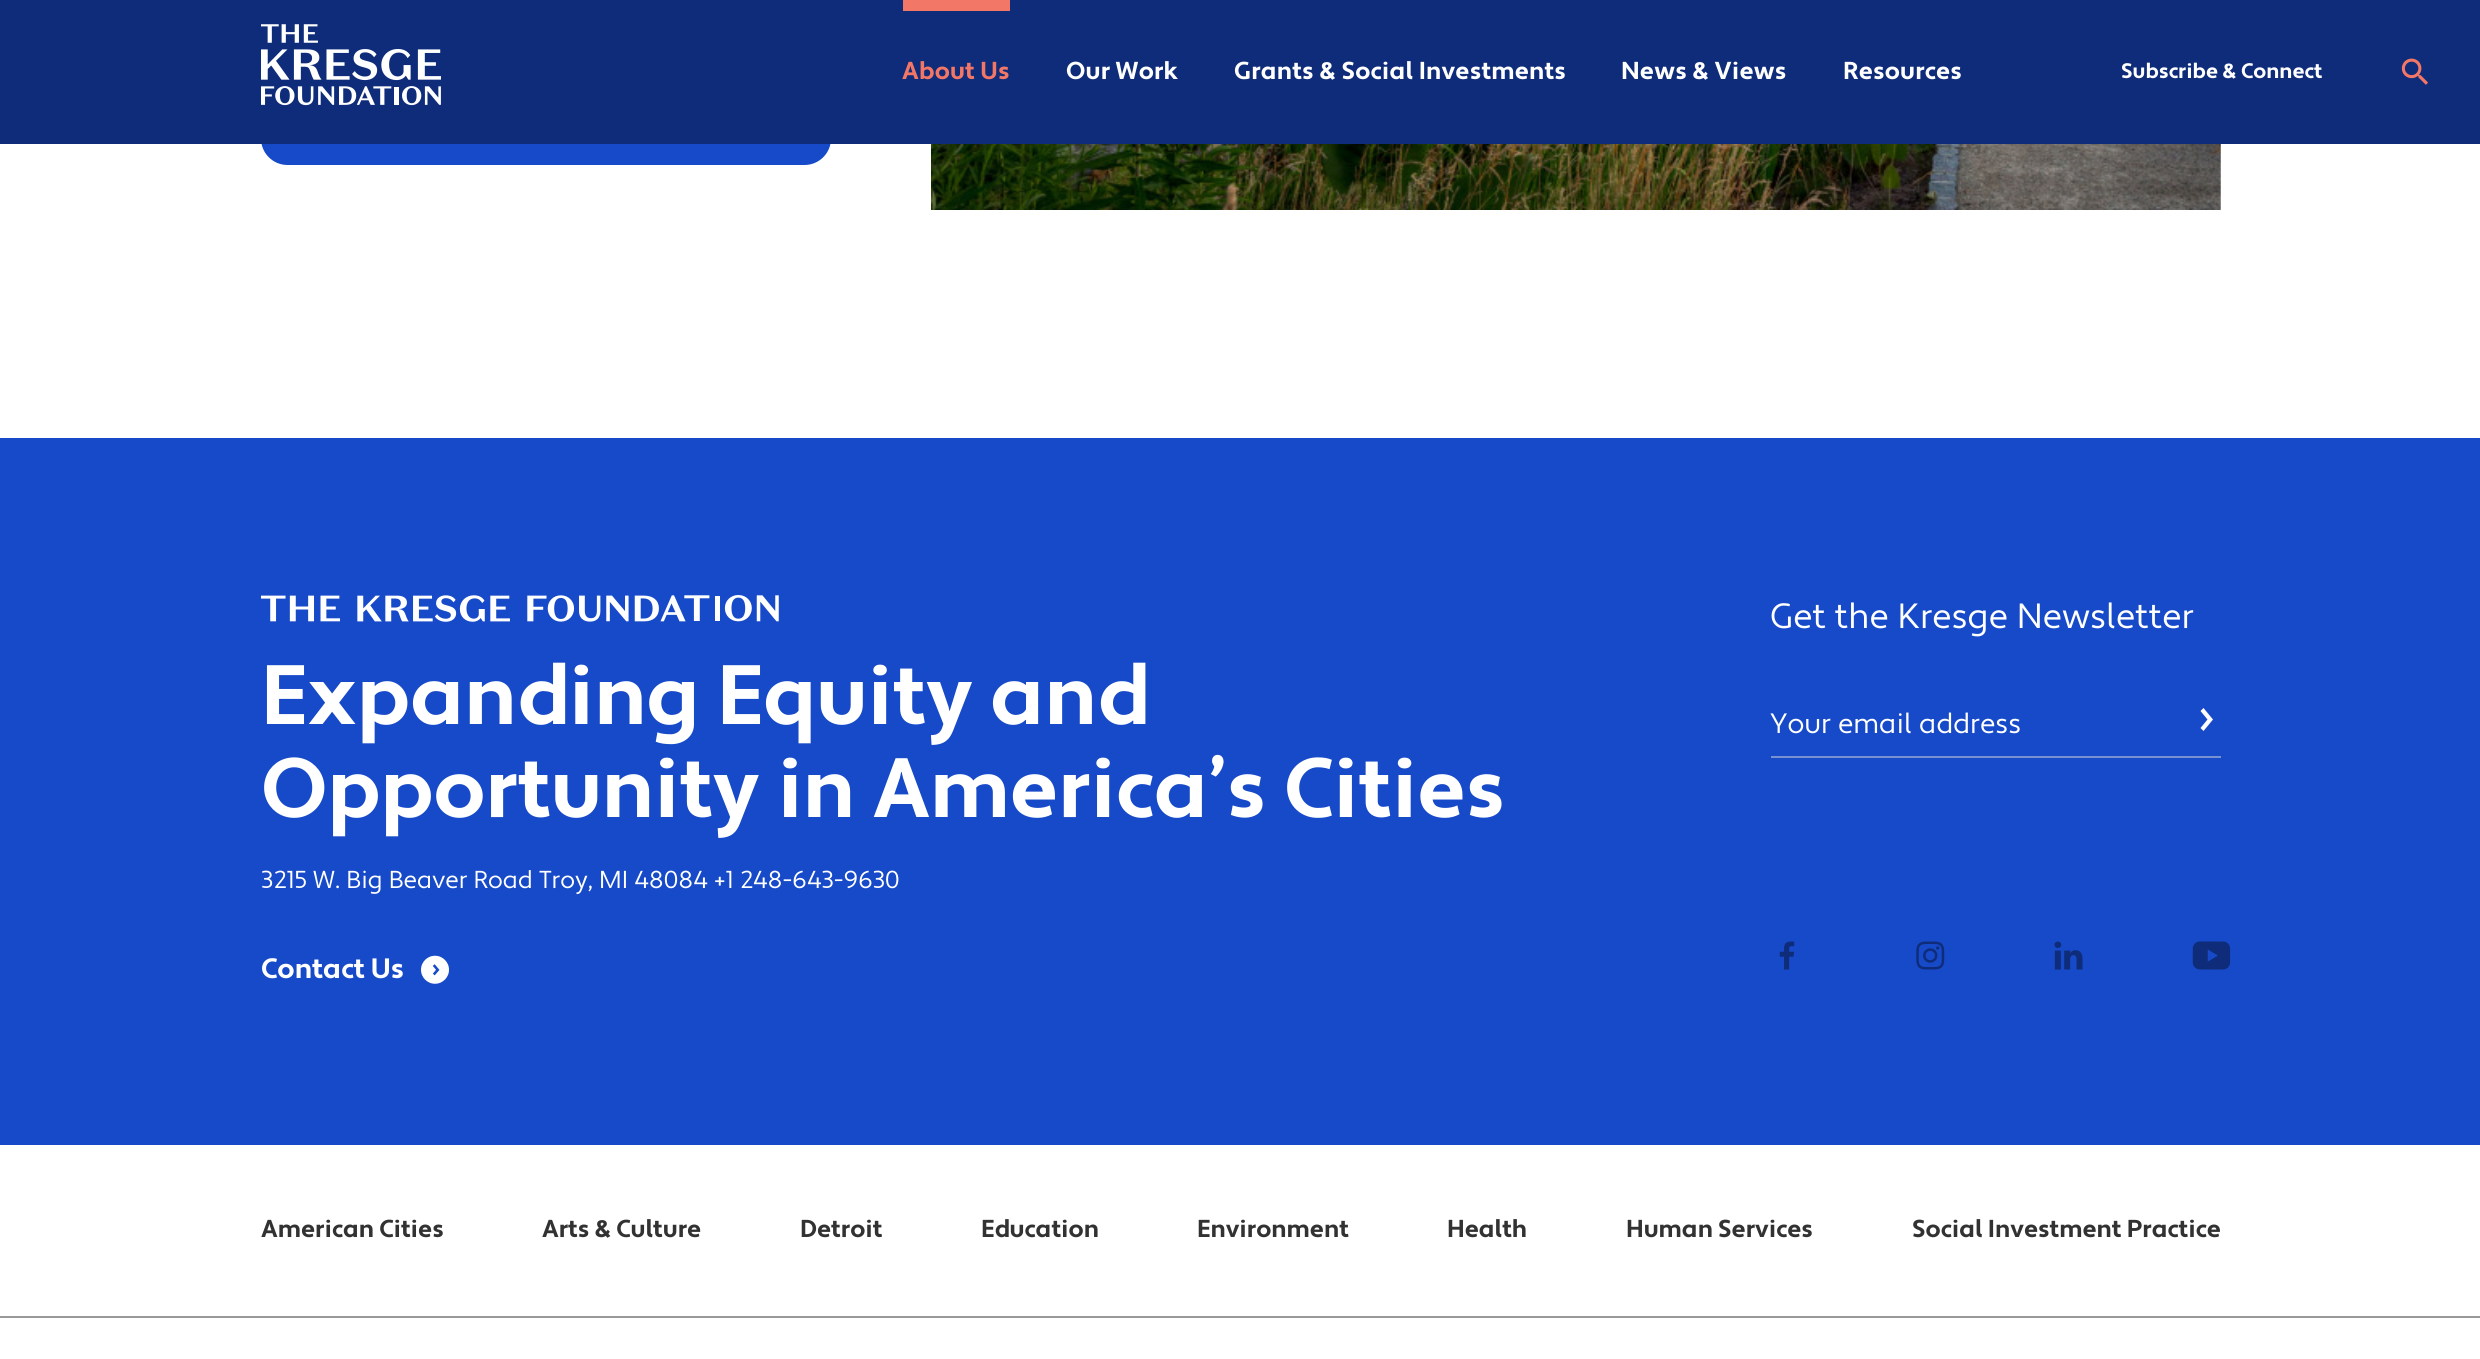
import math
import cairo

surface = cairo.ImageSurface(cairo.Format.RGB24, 2480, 1359)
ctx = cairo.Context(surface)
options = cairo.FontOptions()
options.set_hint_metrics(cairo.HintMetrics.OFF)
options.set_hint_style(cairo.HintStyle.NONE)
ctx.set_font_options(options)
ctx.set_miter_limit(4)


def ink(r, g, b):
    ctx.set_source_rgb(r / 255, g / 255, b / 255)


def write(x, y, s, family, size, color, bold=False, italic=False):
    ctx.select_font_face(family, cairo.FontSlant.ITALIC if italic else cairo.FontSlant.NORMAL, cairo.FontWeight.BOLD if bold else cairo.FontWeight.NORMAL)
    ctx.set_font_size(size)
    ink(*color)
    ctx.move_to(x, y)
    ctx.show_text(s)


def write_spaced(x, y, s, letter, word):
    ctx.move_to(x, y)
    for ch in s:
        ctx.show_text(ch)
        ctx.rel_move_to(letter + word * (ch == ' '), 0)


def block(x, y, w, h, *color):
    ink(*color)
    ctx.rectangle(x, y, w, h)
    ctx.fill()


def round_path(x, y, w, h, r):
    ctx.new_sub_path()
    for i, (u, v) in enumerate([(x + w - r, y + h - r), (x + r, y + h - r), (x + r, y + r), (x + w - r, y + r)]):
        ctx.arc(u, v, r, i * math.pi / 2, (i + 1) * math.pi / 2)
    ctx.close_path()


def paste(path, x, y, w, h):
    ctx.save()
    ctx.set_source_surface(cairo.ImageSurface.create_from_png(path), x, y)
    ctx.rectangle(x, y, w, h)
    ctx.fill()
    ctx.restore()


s1 = dict(family="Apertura", size=21, color=(255, 255, 255), bold=True)
s2 = dict(family="Apertura", size=84, color=(255, 255, 255), bold=True)
s3 = dict(family="Apertura", size=24.5, color=(255, 255, 255))
s4 = dict(family="Apertura", size=28, color=(255, 255, 255), bold=True)
s5 = dict(family="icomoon", size=28, color=(255, 255, 255))
s6 = dict(family="Apertura", size=35, color=(255, 255, 255))
s7 = dict(family="Apertura", size=28, color=(255, 255, 255))
s8 = dict(family="Apertura", size=24.5, color=(50, 50, 50), bold=True)

ink(255, 255, 255)
ctx.paint()
ink(23, 74, 201)
round_path(263, 114, 566, 49, 24.5)
ctx.fill_preserve()
ctx.set_line_width(4)
ctx.stroke()
block(0, 0, 2480, 144, 14, 44, 121)
paste("pic1.png", 261, 24, 180, 82)
block(903, 0, 107, 11, 243, 119, 102)
ctx.select_font_face("Apertura", cairo.FontSlant.NORMAL, cairo.FontWeight.BOLD)
ctx.set_font_size(24.5)
write_spaced(902, 79, "About Us", 0.2, 0)
ink(255, 255, 255)
write_spaced(1066, 79, "Our Work", 0.2, 0)
write_spaced(1234, 79, "Grants & Social Investments", 0.2, 0)
write_spaced(1621, 79, "News & Views", 0.2, 0)
write_spaced(1843, 79, "Resources", 0.2, 0)
write(2121, 78, "Subscribe & Connect", **s1)
paste("pic2.png", 2401, 58, 27, 27)
paste("pic3.png", 931, 144, 1290, 66)
block(0, 438, 2480, 707, 23, 74, 201)
paste("pic4.png", 261, 595, 518, 27)
write(261, 724, "Expanding Equity and", **s2)
write(261, 817, "Opportunity in America’s Cities", **s2)
write(261, 888, "3215 W. Big Beaver Road Troy, MI 48084 +1 248-643-9630", **s3)
write(261, 978, "Contact Us", **s4)
write(421, 982, ">", **s5)
write(1770, 628, "Get the Kresge Newsletter", **s6)
block(1771, 756, 450, 2, 120, 146, 209)
write(1770, 733, "Your email address", **s7)
ctx.new_path()
ctx.move_to(2213, 719.5)
ctx.line_to(2203.5, 731)
ctx.line_to(2200.5, 728)
ctx.line_to(2207.5, 719.5)
ctx.line_to(2200.5, 711)
ctx.line_to(2203.5, 708)
ctx.close_path()
ctx.fill()
paste("pic5.png", 1779, 941, 16, 29)
paste("pic6.png", 1916, 941, 29, 29)
paste("pic7.png", 2054, 941, 29, 29)
paste("pic8.png", 2192, 941, 39, 29)
block(0, 1316, 2480, 2, 153, 153, 153)
write(261, 1237, "American Cities", **s8)
write(542, 1237, "Arts & Culture", **s8)
write(800, 1237, "Detroit", **s8)
write(981, 1237, "Education", **s8)
write(1197, 1237, "Environment", **s8)
write(1447, 1237, "Health", **s8)
write(1626, 1237, "Human Services", **s8)
write(1912, 1237, "Social Investment Practice", **s8)
surface.write_to_png("screenshot.png")
